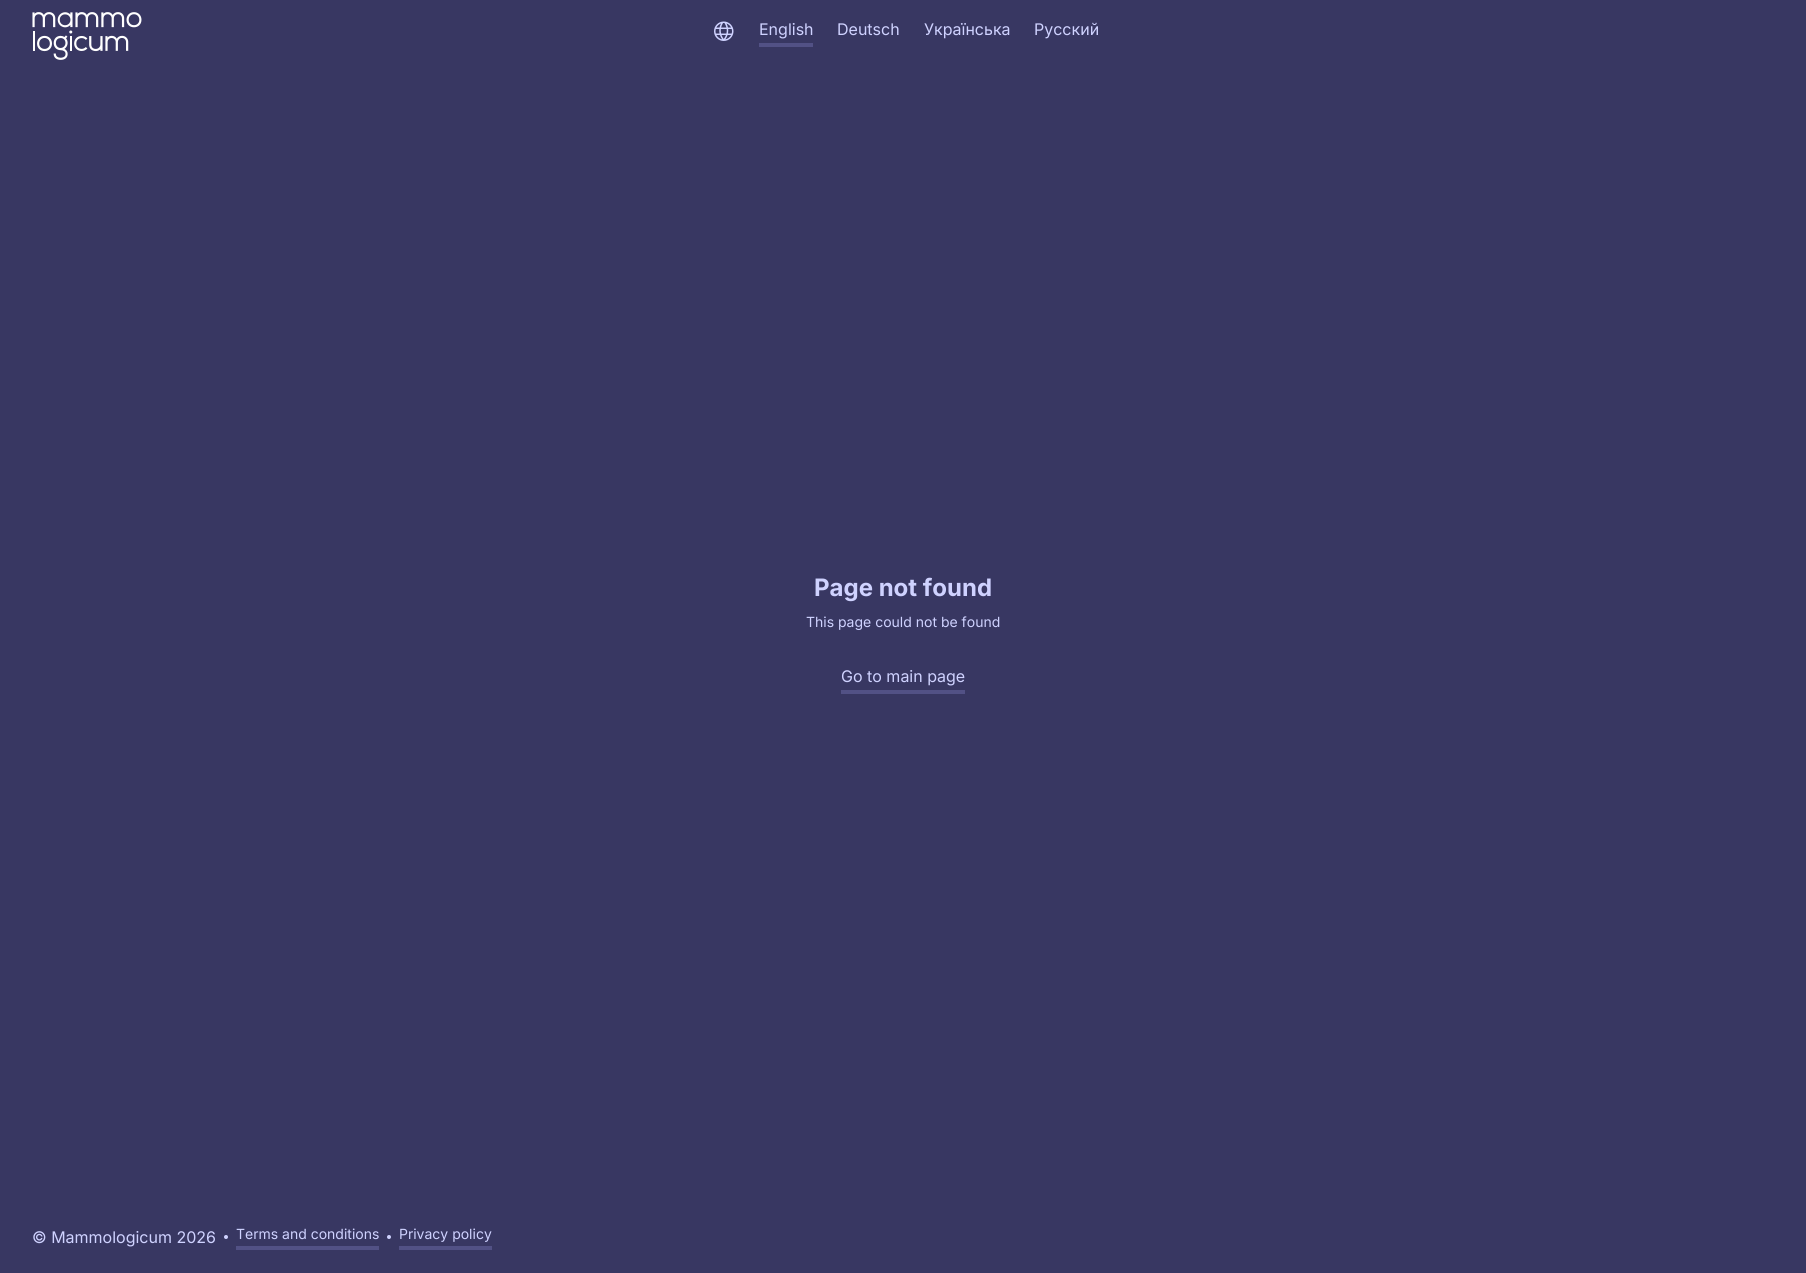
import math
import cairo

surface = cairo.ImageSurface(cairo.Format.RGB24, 1806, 1273)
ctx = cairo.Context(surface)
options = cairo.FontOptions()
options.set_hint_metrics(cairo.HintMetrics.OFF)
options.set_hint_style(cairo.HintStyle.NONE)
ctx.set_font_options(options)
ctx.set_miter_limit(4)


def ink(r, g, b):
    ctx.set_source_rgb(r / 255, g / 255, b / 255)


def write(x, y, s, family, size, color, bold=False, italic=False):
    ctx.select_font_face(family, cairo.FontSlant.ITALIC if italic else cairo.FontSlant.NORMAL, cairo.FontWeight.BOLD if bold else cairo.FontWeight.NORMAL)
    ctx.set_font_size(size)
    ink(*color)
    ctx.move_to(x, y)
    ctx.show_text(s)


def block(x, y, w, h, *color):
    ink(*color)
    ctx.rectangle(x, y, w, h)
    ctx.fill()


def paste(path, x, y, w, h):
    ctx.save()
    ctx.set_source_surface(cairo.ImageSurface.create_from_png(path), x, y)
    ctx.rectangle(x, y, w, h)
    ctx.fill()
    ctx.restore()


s1 = dict(family="Inter", size=16, color=(207, 210, 255))
s2 = dict(family="Inter", size=24, color=(207, 210, 255), bold=True)
s3 = dict(family="Inter", size=14, color=(207, 210, 255))

ink(56, 55, 98)
ctx.paint()
paste("pic1.png", 32, 12, 110, 48)
paste("pic2.png", 714, 21, 20, 20)
block(759, 43, 54, 4, 82, 81, 133)
write(759, 35, "English", **s1)
write(837, 35, "Deutsch", **s1)
write(924, 35, "Українська", **s1)
write(1034, 35, "Русский", **s1)
write(814, 596, "Page not found", **s2)
write(806, 627, "This page could not be found", **s3)
block(841, 690, 124, 4, 82, 81, 133)
write(841, 682, "Go to main page", **s1)
write(32, 1243, "© Mammologicum 2026", **s1)
ctx.new_path()
ctx.arc(226, 1237, 2, 0, 2 * math.pi)
ctx.fill()
block(236, 1246, 143, 4, 82, 81, 133)
write(236, 1239, "Terms and conditions", **s3)
ctx.new_path()
ctx.arc(389, 1237, 2, 0, 2 * math.pi)
ctx.fill()
block(399, 1246, 93, 4, 82, 81, 133)
write(399, 1239, "Privacy policy", **s3)
surface.write_to_png("screenshot.png")
